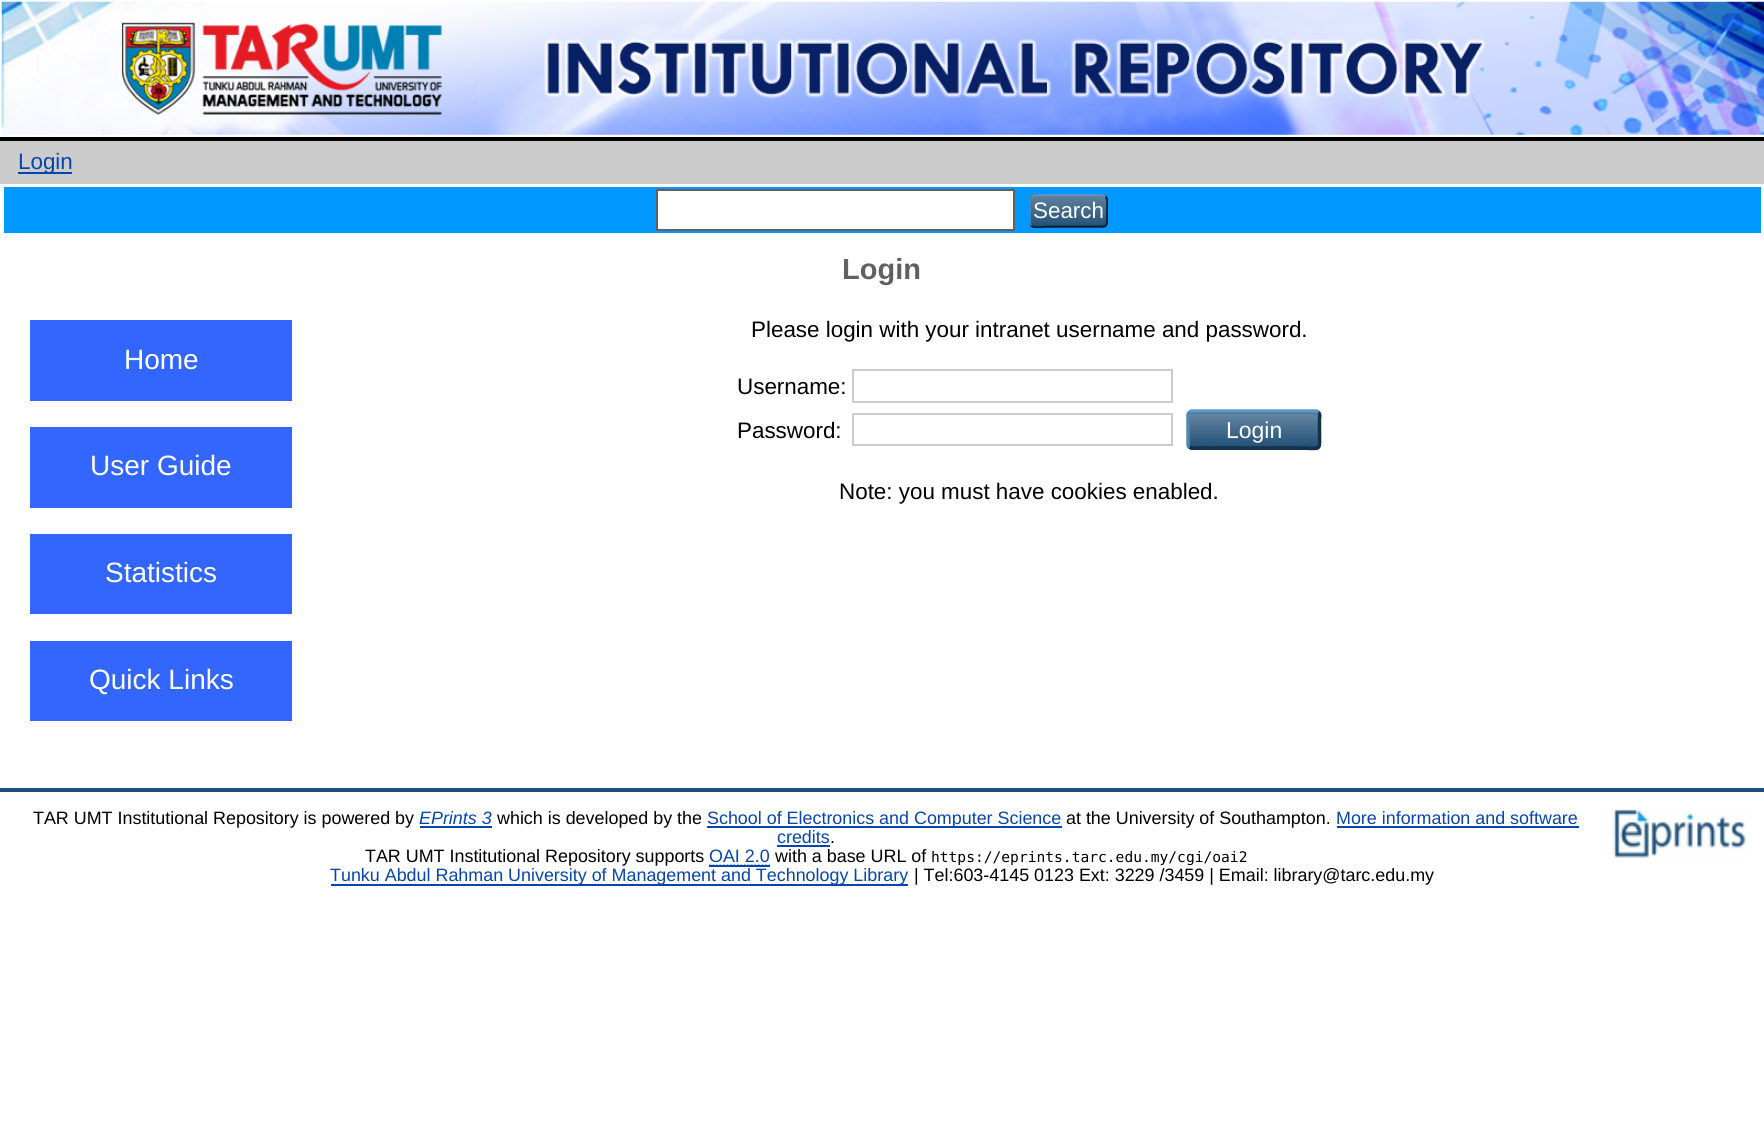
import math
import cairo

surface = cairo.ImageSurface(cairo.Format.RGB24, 1764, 1121)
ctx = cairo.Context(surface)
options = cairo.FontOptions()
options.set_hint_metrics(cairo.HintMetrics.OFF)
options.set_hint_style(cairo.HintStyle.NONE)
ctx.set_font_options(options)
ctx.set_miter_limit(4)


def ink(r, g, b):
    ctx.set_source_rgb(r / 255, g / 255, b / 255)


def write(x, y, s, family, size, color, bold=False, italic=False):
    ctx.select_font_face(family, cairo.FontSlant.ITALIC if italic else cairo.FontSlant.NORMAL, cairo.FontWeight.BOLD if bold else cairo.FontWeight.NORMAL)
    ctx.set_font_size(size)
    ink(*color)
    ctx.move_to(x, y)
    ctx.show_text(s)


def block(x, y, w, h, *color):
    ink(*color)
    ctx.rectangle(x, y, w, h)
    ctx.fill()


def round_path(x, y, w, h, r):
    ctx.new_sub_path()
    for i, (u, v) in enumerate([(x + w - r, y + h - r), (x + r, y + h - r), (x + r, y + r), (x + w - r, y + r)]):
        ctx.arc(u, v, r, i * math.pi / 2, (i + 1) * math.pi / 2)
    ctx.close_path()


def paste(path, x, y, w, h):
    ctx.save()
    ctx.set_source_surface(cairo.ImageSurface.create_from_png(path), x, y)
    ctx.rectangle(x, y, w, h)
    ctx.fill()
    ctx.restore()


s1 = dict(family="Liberation Sans", size=22.4, color=(6, 69, 173))
s2 = dict(family="Liberation Sans", size=22.4, color=(255, 255, 255))
s3 = dict(family="Liberation Sans", size=29, color=(96, 96, 96), bold=True)
s4 = dict(family="Liberation Sans", size=28, color=(255, 255, 255))
s5 = dict(family="Liberation Sans", size=22.4, color=(0, 0, 0))
s6 = dict(family="Liberation Sans", size=23, color=(255, 255, 255))
s7 = dict(family="Liberation Sans", size=17.9, color=(0, 0, 0))
s8 = dict(family="Liberation Sans", size=17.9, color=(6, 69, 173), italic=True)
s9 = dict(family="Liberation Sans", size=17.9, color=(6, 69, 173))
s10 = dict(family="DejaVu Sans Mono", size=14.6, color=(0, 0, 0))

ink(255, 255, 255)
ctx.paint()
paste("pic1.png", 1, 1, 1763, 134)
block(0, 141, 1764, 43, 204, 204, 204)
block(0, 137, 1764, 4, 0, 0, 0)
block(18, 172, 54, 2, 6, 69, 173)
write(18, 169, "Login", **s1)
block(4, 187, 1757, 46, 0, 153, 255)
ink(255, 255, 255)
ctx.rectangle(657, 190, 357, 40)
ctx.fill_preserve()
ink(96, 96, 96)
ctx.stroke()
ink(31, 79, 118)
round_path(1029, 194, 79, 34, 5)
ctx.fill()
paste("pic2.png", 1029, 194, 79, 32)
ctx.new_path()
ctx.move_to(1031, 196.5)
ctx.line_to(1034, 195)
ctx.line_to(1103, 195)
ctx.line_to(1105.5, 196.5)
ink(91, 151, 199)
ctx.set_line_width(1.8)
ctx.stroke()
ctx.new_path()
ctx.move_to(1105.5, 196.5)
ctx.curve_to(1108, 199, 1107, 207.5, 1107, 211)
ctx.curve_to(1107, 228.5, 1109, 226.5, 1091, 226.5)
ctx.line_to(1045.5, 226.5)
ctx.curve_to(1045, 226.5, 1034, 228.5, 1031, 225.5)
ink(13, 33, 49)
ctx.stroke()
ctx.new_path()
ctx.move_to(1031, 225.5)
ctx.curve_to(1030.5, 224.5, 1030, 223.5, 1030, 222)
ctx.line_to(1030, 199.5)
ctx.curve_to(1030, 198.5, 1030.5, 197, 1031, 196.5)
ink(82, 135, 179)
ctx.stroke()
write(1033, 218, "Search", **s2)
write(842, 279, "Login", **s3)
block(30, 320, 262, 81, 51, 102, 255)
write(124, 369, "Home", **s4)
block(30, 427, 262, 81, 51, 102, 255)
write(90, 475, "User Guide", **s4)
block(30, 534, 262, 80, 51, 102, 255)
write(105, 582, "Statistics", **s4)
block(30, 641, 262, 80, 51, 102, 255)
write(89, 689, "Quick Links", **s4)
write(751, 337, "Please login with your intranet username and password.", **s5)
write(737, 394, "Username:", **s5)
ctx.rectangle(853, 370, 319, 32)
ink(204, 204, 204)
ctx.set_line_width(2)
ctx.stroke()
write(737, 438, "Password:", **s5)
ctx.rectangle(853, 414, 319, 31)
ink(204, 204, 204)
ctx.stroke()
ink(31, 79, 118)
round_path(1187, 410, 134, 40, 5)
ctx.fill()
paste("pic3.png", 1187, 412, 134, 34)
ctx.new_path()
ctx.move_to(1189.5, 412.5)
ctx.curve_to(1190, 411.5, 1191, 411, 1192, 411)
ctx.line_to(1316, 411)
ctx.curve_to(1317, 411, 1318, 411.5, 1318.5, 412.5)
ink(91, 151, 199)
ctx.set_line_width(3.5)
ctx.stroke()
ctx.new_path()
ctx.move_to(1318.5, 412.5)
ctx.curve_to(1320.5, 414, 1319.5, 418, 1319.5, 419.5)
ctx.line_to(1319.5, 429.5)
ctx.curve_to(1319.5, 453.5, 1322.5, 448, 1295.5, 448)
ctx.line_to(1192, 448)
ctx.line_to(1189.5, 447)
ink(19, 50, 74)
ctx.stroke()
ctx.new_path()
ctx.move_to(1189.5, 447)
ctx.curve_to(1188.5, 446.5, 1188, 445.5, 1188, 444.5)
ctx.line_to(1188, 415)
ctx.curve_to(1188, 414, 1188.5, 413, 1189.5, 412.5)
ink(82, 135, 179)
ctx.stroke()
write(1226, 438, "Login", **s6)
write(839, 499, "Note: you must have cookies enabled.", **s5)
block(0, 788, 1764, 4, 32, 79, 118)
write(33, 824, "TAR UMT Institutional Repository is powered by", **s7)
write(419, 824, "EPrints 3", **s8)
block(420, 826, 72, 2, 6, 69, 173)
write(497, 824, "which is developed by the", **s7)
block(707, 826, 355, 2, 6, 69, 173)
write(707, 824, "School of Electronics and Computer Science", **s9)
write(1066, 824, "at the University of Southampton.", **s7)
write(1336, 824, "More information and software", **s9)
block(1337, 826, 242, 2, 6, 69, 173)
write(777, 843, "credits", **s9)
block(777, 845, 53, 2, 6, 69, 173)
write(830, 843, ".", **s7)
paste("pic4.png", 1612, 809, 134, 50)
write(365, 862, "TAR UMT Institutional Repository supports", **s7)
write(709, 862, "OAI 2.0", **s9)
ctx.new_path()
ctx.move_to(709, 865.5)
ctx.line_to(770, 865.5)
ctx.set_line_width(1.8)
ctx.set_dash([1.75, 1.75])
ctx.stroke()
block(709, 865, 61, 2, 6, 69, 173)
write(775, 862, "with a base URL of", **s7)
write(931, 862, "https://eprints.tarc.edu.my/cgi/oai2", **s10)
block(331, 884, 577, 2, 6, 69, 173)
write(330, 881, "Tunku Abdul Rahman University of Management and Technology Library", **s9)
write(914, 881, "| Tel:603-4145 0123 Ext: 3229 /3459 | Email: library@tarc.edu.my", **s7)
surface.write_to_png("screenshot.png")
